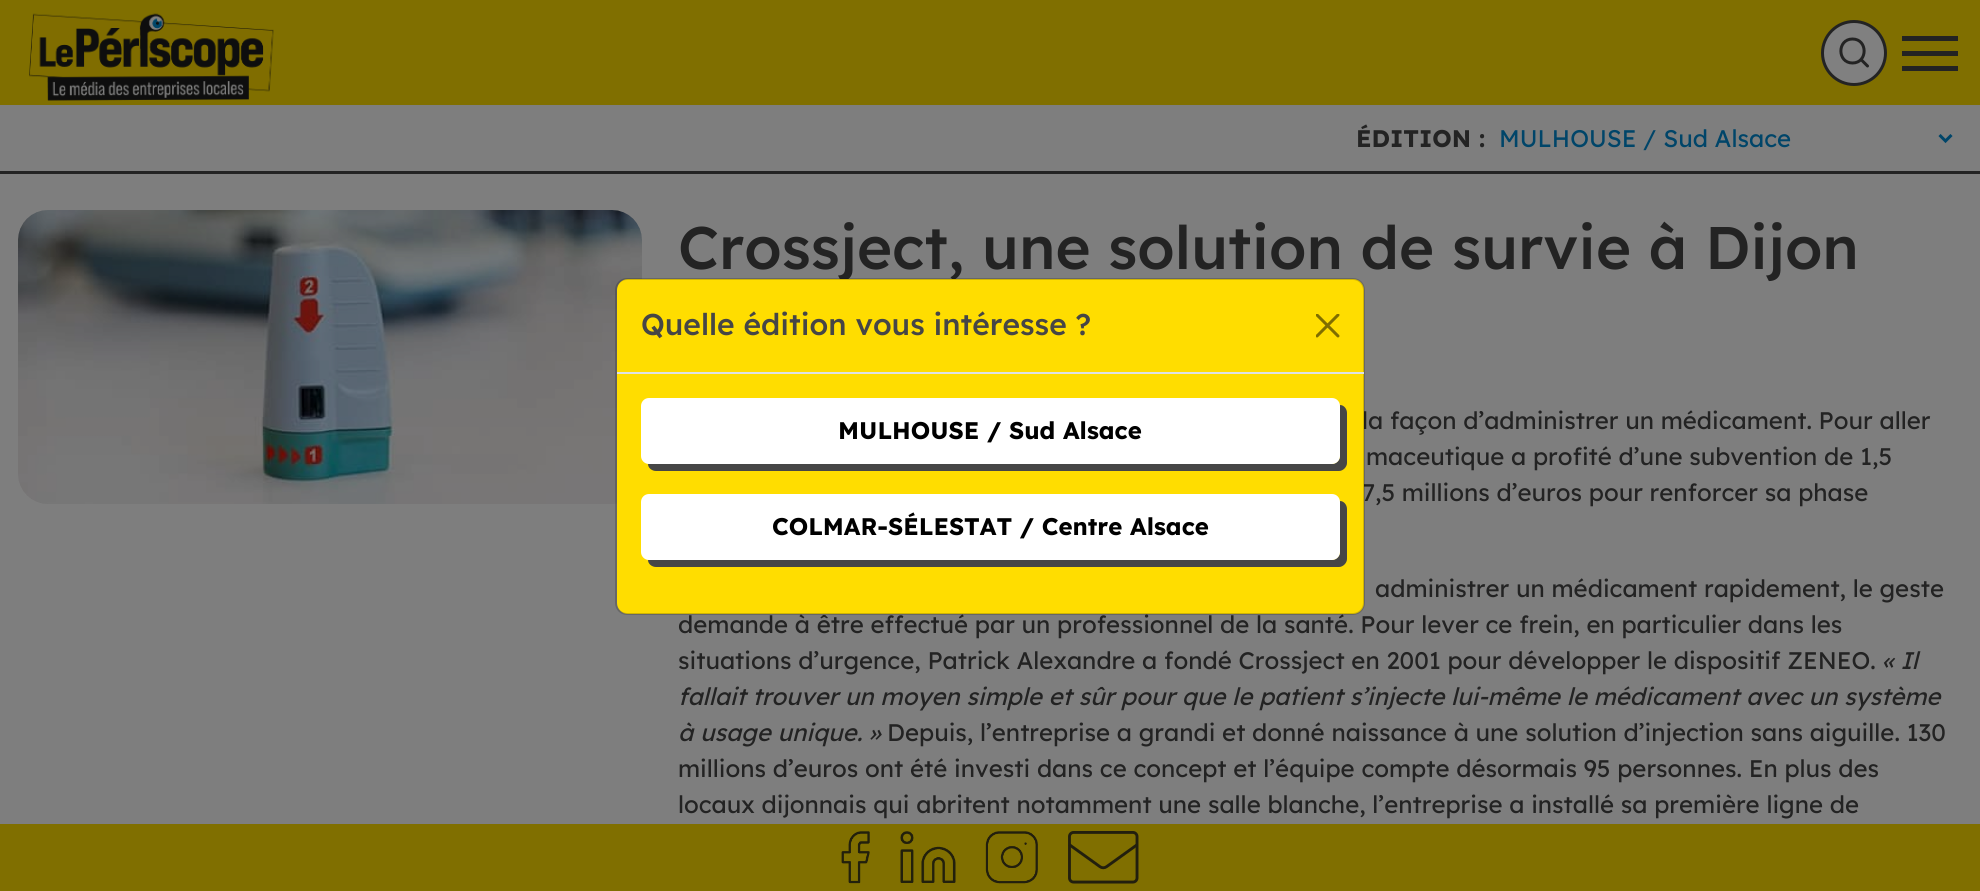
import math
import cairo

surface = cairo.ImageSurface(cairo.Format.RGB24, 1980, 891)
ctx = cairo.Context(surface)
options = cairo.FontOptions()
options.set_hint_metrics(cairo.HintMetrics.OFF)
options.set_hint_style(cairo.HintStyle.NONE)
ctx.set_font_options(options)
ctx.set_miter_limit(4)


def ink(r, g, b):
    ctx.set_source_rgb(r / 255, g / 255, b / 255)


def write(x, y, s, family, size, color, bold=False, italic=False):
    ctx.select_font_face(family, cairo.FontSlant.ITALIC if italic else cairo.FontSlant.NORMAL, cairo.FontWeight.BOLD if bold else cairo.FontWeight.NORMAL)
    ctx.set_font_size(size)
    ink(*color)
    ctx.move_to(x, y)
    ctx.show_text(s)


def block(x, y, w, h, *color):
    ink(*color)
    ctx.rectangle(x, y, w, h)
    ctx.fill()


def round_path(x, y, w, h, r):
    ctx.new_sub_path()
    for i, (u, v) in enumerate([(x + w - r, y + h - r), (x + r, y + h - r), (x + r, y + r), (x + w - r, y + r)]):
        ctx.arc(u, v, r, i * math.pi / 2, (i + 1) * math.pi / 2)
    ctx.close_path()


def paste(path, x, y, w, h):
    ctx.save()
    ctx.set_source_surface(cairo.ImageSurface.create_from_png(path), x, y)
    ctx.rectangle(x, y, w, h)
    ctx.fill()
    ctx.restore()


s1 = dict(family="Lexend", size=24, color=(35, 35, 35), bold=True)
s2 = dict(family="Lexend", size=24, color=(0, 69, 105))
s3 = dict(family="Lexend Medium", size=60, color=(35, 35, 35))
s4 = dict(family="Lexend", size=24, color=(35, 35, 35))
s5 = dict(family="Lexend", size=24, color=(35, 35, 35), italic=True)
s6 = dict(family="Lexend Medium", size=30, color=(70, 70, 70))
s7 = dict(family="Lexend", size=24, color=(0, 0, 0), bold=True)

ink(126, 126, 126)
ctx.paint()
block(0, 0, 1980, 105, 128, 111, 0)
paste("pic1.png", 29, 13, 245, 88)
ink(128, 128, 128)
ctx.arc(1854, 53, 31.5, 0, 2 * math.pi)
ctx.fill_preserve()
ink(35, 35, 35)
ctx.set_line_width(3)
ctx.stroke()
ctx.new_path()
ctx.move_to(1852.5, 63)
ctx.curve_to(1868, 63, 1868, 39, 1852.5, 39)
ctx.curve_to(1837, 39, 1837, 63, 1852.5, 63)
ctx.close_path()
ctx.move_to(1867.5, 66)
ctx.line_to(1861, 59.5)
ctx.set_line_cap(cairo.LineCap.ROUND)
ctx.set_line_join(cairo.LineJoin.ROUND)
ctx.stroke()
block(1902, 36, 56, 5, 35, 35, 35)
block(1902, 51, 56, 5, 35, 35, 35)
block(1902, 66, 56, 5, 35, 35, 35)
block(0, 171, 1980, 3, 35, 35, 35)
write(1356, 147, "ÉDITION :", **s1)
ctx.new_path()
ctx.move_to(1939.5, 135)
ctx.line_to(1945.5, 141)
ctx.line_to(1951.5, 135)
ink(0, 69, 105)
ctx.set_line_cap(cairo.LineCap.BUTT)
ctx.set_line_join(cairo.LineJoin.MITER)
ctx.stroke()
write(1499, 147, "MULHOUSE / Sud Alsace", **s2)
paste("pic2.png", 18, 210, 624, 294)
write(678, 269, "Crossject, une solution de survie à Dijon", **s3)
write(1362, 429, "la façon d’administrer un médicament. Pour aller", **s4)
write(1366, 465, "maceutique a profité d’une subvention de 1,5", **s4)
write(1362, 501, "7,5 millions d’euros pour renforcer sa phase", **s4)
write(1375, 597, "administrer un médicament rapidement, le geste", **s4)
write(678, 633, "demande à être effectué par un professionnel de la santé. Pour lever ce frein, en particulier dans les", **s4)
write(678, 669, "situations d’urgence, Patrick Alexandre a fondé Crossject en 2001 pour développer le dispositif ZENEO.", **s4)
write(1882, 669, "« Il", **s5)
write(678, 705, "fallait trouver un moyen simple et sûr pour que le patient s’injecte lui-même le médicament avec un système", **s5)
write(678, 741, "à usage unique. »", **s5)
write(887, 741, "Depuis, l’entreprise a grandi et donné naissance à une solution d’injection sans aiguille. 130", **s4)
write(678, 777, "millions d’euros ont été investi dans ce concept et l’équipe compte désormais 95 personnes. En plus des", **s4)
write(678, 813, "locaux dijonnais qui abritent notamment une salle blanche, l’entreprise a installé sa première ligne de", **s4)
ink(255, 221, 0)
round_path(617, 279, 747, 335, 11)
ctx.fill()
round_path(616, 279, 748, 335, 11)
ctx.set_source_rgba(0, 0, 0, 0.18)
ctx.set_line_width(2)
ctx.stroke()
block(617, 372, 747, 2, 222, 226, 230)
write(641, 335, "Quelle édition vous intéresse ?", **s6)
paste("pic3.png", 1316, 314, 24, 24)
ctx.new_path()
ctx.move_to(648, 464)
ctx.curve_to(648, 468, 652, 471, 656, 471)
ctx.line_to(1339, 471)
ctx.curve_to(1343, 471, 1347, 467, 1347, 463)
ctx.line_to(1347, 413)
ctx.curve_to(1347, 409, 1344, 405, 1340, 405)
ctx.line_to(1340, 456)
ctx.curve_to(1340, 460, 1336, 464, 1332, 464)
ctx.close_path()
ctx.fill()
ink(255, 255, 255)
round_path(641, 398, 699, 66, 8)
ctx.fill()
write(838, 439, "MULHOUSE / Sud Alsace", **s7)
ink(70, 70, 70)
ctx.new_path()
ctx.move_to(648, 560)
ctx.curve_to(648, 564, 652, 567, 656, 567)
ctx.line_to(1339, 567)
ctx.curve_to(1343, 567, 1347, 563, 1347, 559)
ctx.line_to(1347, 509)
ctx.curve_to(1347, 505, 1344, 501, 1340, 501)
ctx.line_to(1340, 552)
ctx.curve_to(1340, 556, 1336, 560, 1332, 560)
ctx.close_path()
ctx.fill()
ink(255, 255, 255)
round_path(641, 494, 699, 66, 8)
ctx.fill()
write(772, 535, "COLMAR-SÉLESTAT / Centre Alsace", **s7)
block(0, 824, 1980, 67, 128, 111, 0)
paste("pic4.png", 841, 831, 29, 53)
paste("pic5.png", 900, 831, 56, 52)
paste("pic6.png", 985, 831, 53, 53)
paste("pic7.png", 1068, 831, 71, 53)
surface.write_to_png("screenshot.png")
